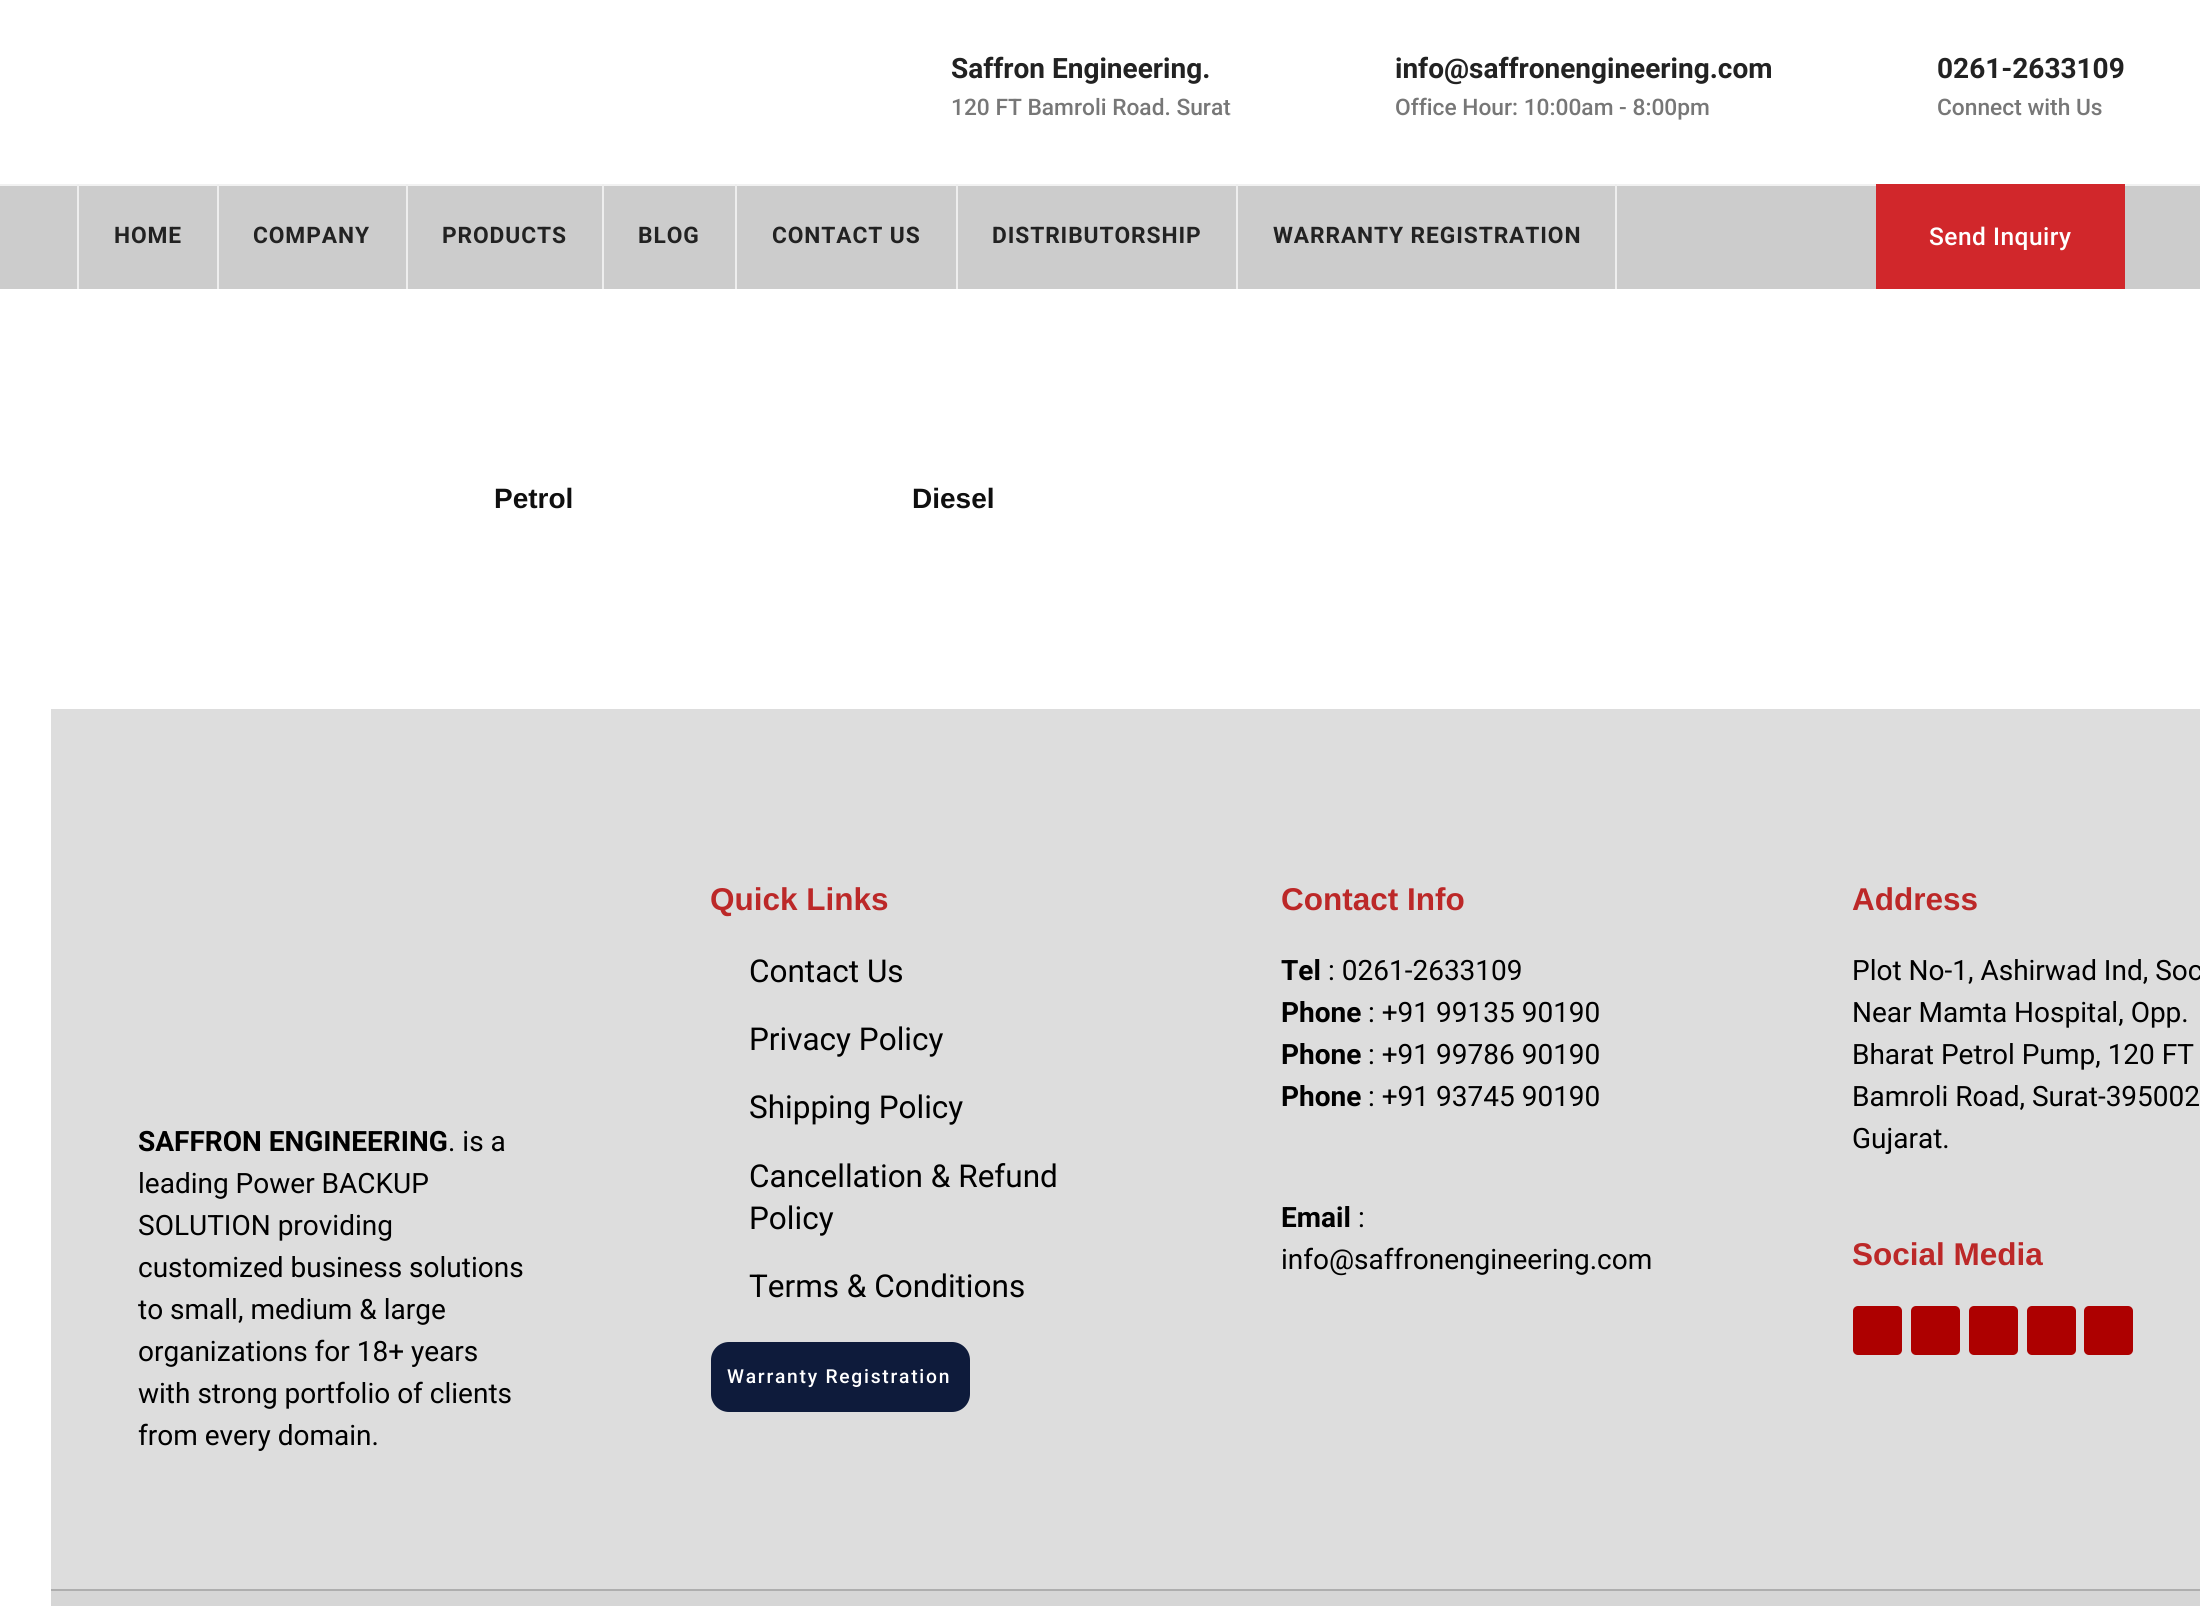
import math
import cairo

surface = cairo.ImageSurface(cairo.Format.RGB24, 2200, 1606)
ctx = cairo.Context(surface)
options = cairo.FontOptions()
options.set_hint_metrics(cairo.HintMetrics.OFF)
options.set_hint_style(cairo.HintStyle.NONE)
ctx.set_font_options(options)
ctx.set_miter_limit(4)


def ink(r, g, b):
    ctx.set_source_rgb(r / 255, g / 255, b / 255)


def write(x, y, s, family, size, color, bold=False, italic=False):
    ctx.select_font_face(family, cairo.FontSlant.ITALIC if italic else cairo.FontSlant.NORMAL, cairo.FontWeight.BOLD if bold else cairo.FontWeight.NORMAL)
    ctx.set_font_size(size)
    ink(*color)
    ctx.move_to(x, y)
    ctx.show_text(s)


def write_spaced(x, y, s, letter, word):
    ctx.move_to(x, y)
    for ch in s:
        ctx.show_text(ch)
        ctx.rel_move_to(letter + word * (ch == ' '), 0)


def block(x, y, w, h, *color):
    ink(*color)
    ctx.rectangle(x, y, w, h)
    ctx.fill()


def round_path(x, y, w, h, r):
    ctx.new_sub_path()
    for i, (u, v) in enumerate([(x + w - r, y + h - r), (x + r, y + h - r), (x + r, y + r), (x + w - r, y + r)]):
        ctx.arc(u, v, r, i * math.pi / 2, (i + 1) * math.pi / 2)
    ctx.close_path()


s1 = dict(family="Roboto", size=28, color=(34, 34, 34), bold=True)
s2 = dict(family="Roboto Medium", size=22.75, color=(119, 119, 119))
s3 = dict(family="Liberation Sans", size=28, color=(15, 15, 15), bold=True)
s4 = dict(family="Roboto", size=28, color=(0, 0, 0), bold=True)
s5 = dict(family="Roboto", size=28, color=(0, 0, 0))
s6 = dict(family="Liberation Sans", size=31.5, color=(188, 40, 40), bold=True)
s7 = dict(family="Roboto", size=31.5, color=(0, 0, 0))

ink(255, 255, 255)
ctx.paint()
write(951, 78, "Saffron Engineering.", **s1)
write(951, 115, "120 FT Bamroli Road. Surat", **s2)
ctx.set_source_rgba(1, 1, 1, 0.3)
ctx.rectangle(1229, 103, 1, 12)
ctx.fill()
write(1395, 78, "info@saffronengineering.com", **s1)
write(1395, 115, "Office Hour: 10:00am - 8:00pm", **s2)
write(1937, 78, "0261-2633109", **s1)
write(1937, 115, "Connect with Us", **s2)
block(0, 186, 2200, 103, 204, 204, 204)
block(0, 184, 2200, 2, 241, 241, 241)
block(77, 184, 2, 105, 238, 238, 238)
block(217, 184, 2, 105, 238, 238, 238)
ctx.select_font_face("Roboto", cairo.FontSlant.NORMAL, cairo.FontWeight.BOLD)
ink(34, 34, 34)
write_spaced(114, 243, "HOME", 0.9, 0)
block(406, 184, 2, 105, 238, 238, 238)
ink(34, 34, 34)
write_spaced(253, 243, "COMPANY", 0.9, 0)
block(602, 184, 2, 105, 238, 238, 238)
ink(34, 34, 34)
write_spaced(442, 243, "PRODUCTS", 0.9, 0)
block(735, 184, 2, 105, 238, 238, 238)
ink(34, 34, 34)
write_spaced(638, 243, "BLOG", 0.9, 0)
block(956, 184, 2, 105, 238, 238, 238)
ink(34, 34, 34)
write_spaced(772, 243, "CONTACT US", 0.9, 0)
block(1236, 184, 2, 105, 238, 238, 238)
ink(34, 34, 34)
write_spaced(992, 243, "DISTRIBUTORSHIP", 0.9, 0)
block(1615, 184, 2, 105, 238, 238, 238)
ink(34, 34, 34)
write_spaced(1273, 243, "WARRANTY REGISTRATION", 0.9, 0)
block(1876, 184, 249, 105, 209, 39, 43)
ctx.select_font_face("Roboto Medium")
ctx.set_font_size(24.5)
ink(255, 255, 255)
write_spaced(1929, 245, "Send Inquiry", 0.5, 0)
write(494, 508, "Petrol", **s3)
write(912, 508, "Diesel", **s3)
block(51, 709, 2149, 880, 221, 221, 221)
write(138, 1151, "SAFFRON ENGINEERING", **s4)
write(448, 1151, ". is a", **s5)
write(138, 1193, "leading Power BACKUP", **s5)
write(138, 1235, "SOLUTION providing", **s5)
write(138, 1277, "customized business solutions", **s5)
write(138, 1319, "to small, medium & large", **s5)
write(138, 1361, "organizations for 18+ years", **s5)
write(138, 1403, "with strong portfolio of clients", **s5)
write(138, 1445, "from every domain.", **s5)
write(710, 910, "Quick Links", **s6)
write(749, 982, "Contact Us", **s7)
write(749, 1050, "Privacy Policy", **s7)
write(749, 1118, "Shipping Policy", **s7)
write(749, 1187, "Cancellation & Refund", **s7)
write(749, 1229, "Policy", **s7)
write(749, 1297, "Terms & Conditions", **s7)
ink(14, 27, 59)
round_path(711, 1342, 259, 70, 18)
ctx.fill()
ctx.select_font_face("Roboto Medium")
ctx.set_font_size(19.25)
ink(255, 255, 255)
write_spaced(727, 1383, "Warranty Registration", 1.75, 0)
write(1281, 910, "Contact Info", **s6)
write(1281, 980, "Tel", **s4)
write(1328, 980, ": 0261-2633109", **s5)
write(1281, 1022, "Phone", **s4)
write(1368, 1022, ": +91 99135 90190", **s5)
write(1281, 1064, "Phone", **s4)
write(1368, 1064, ": +91 99786 90190", **s5)
write(1281, 1106, "Phone", **s4)
write(1368, 1106, ": +91 93745 90190", **s5)
write(1281, 1227, "Email", **s4)
write(1358, 1227, ":", **s5)
write(1281, 1269, "info@saffronengineering.com", **s5)
write(1852, 910, "Address", **s6)
write(1852, 980, "Plot No-1, Ashirwad Ind, Soc", **s5)
write(1852, 1022, "Near Mamta Hospital, Opp.", **s5)
write(1852, 1064, "Bharat Petrol Pump, 120 FT", **s5)
write(1852, 1106, "Bamroli Road, Surat-395002", **s5)
write(1852, 1148, "Gujarat.", **s5)
write(1852, 1265, "Social Media", **s6)
ink(173, 0, 0)
round_path(1853, 1306, 49, 49, 5)
ctx.fill()
round_path(1911, 1306, 49, 49, 5)
ctx.fill()
round_path(1969, 1306, 49, 49, 5)
ctx.fill()
round_path(2027, 1306, 49, 49, 5)
ctx.fill()
round_path(2084, 1306, 49, 49, 5)
ctx.fill()
block(51, 1591, 2149, 15, 214, 214, 214)
block(51, 1589, 2149, 2, 174, 174, 174)
surface.write_to_png("screenshot.png")
